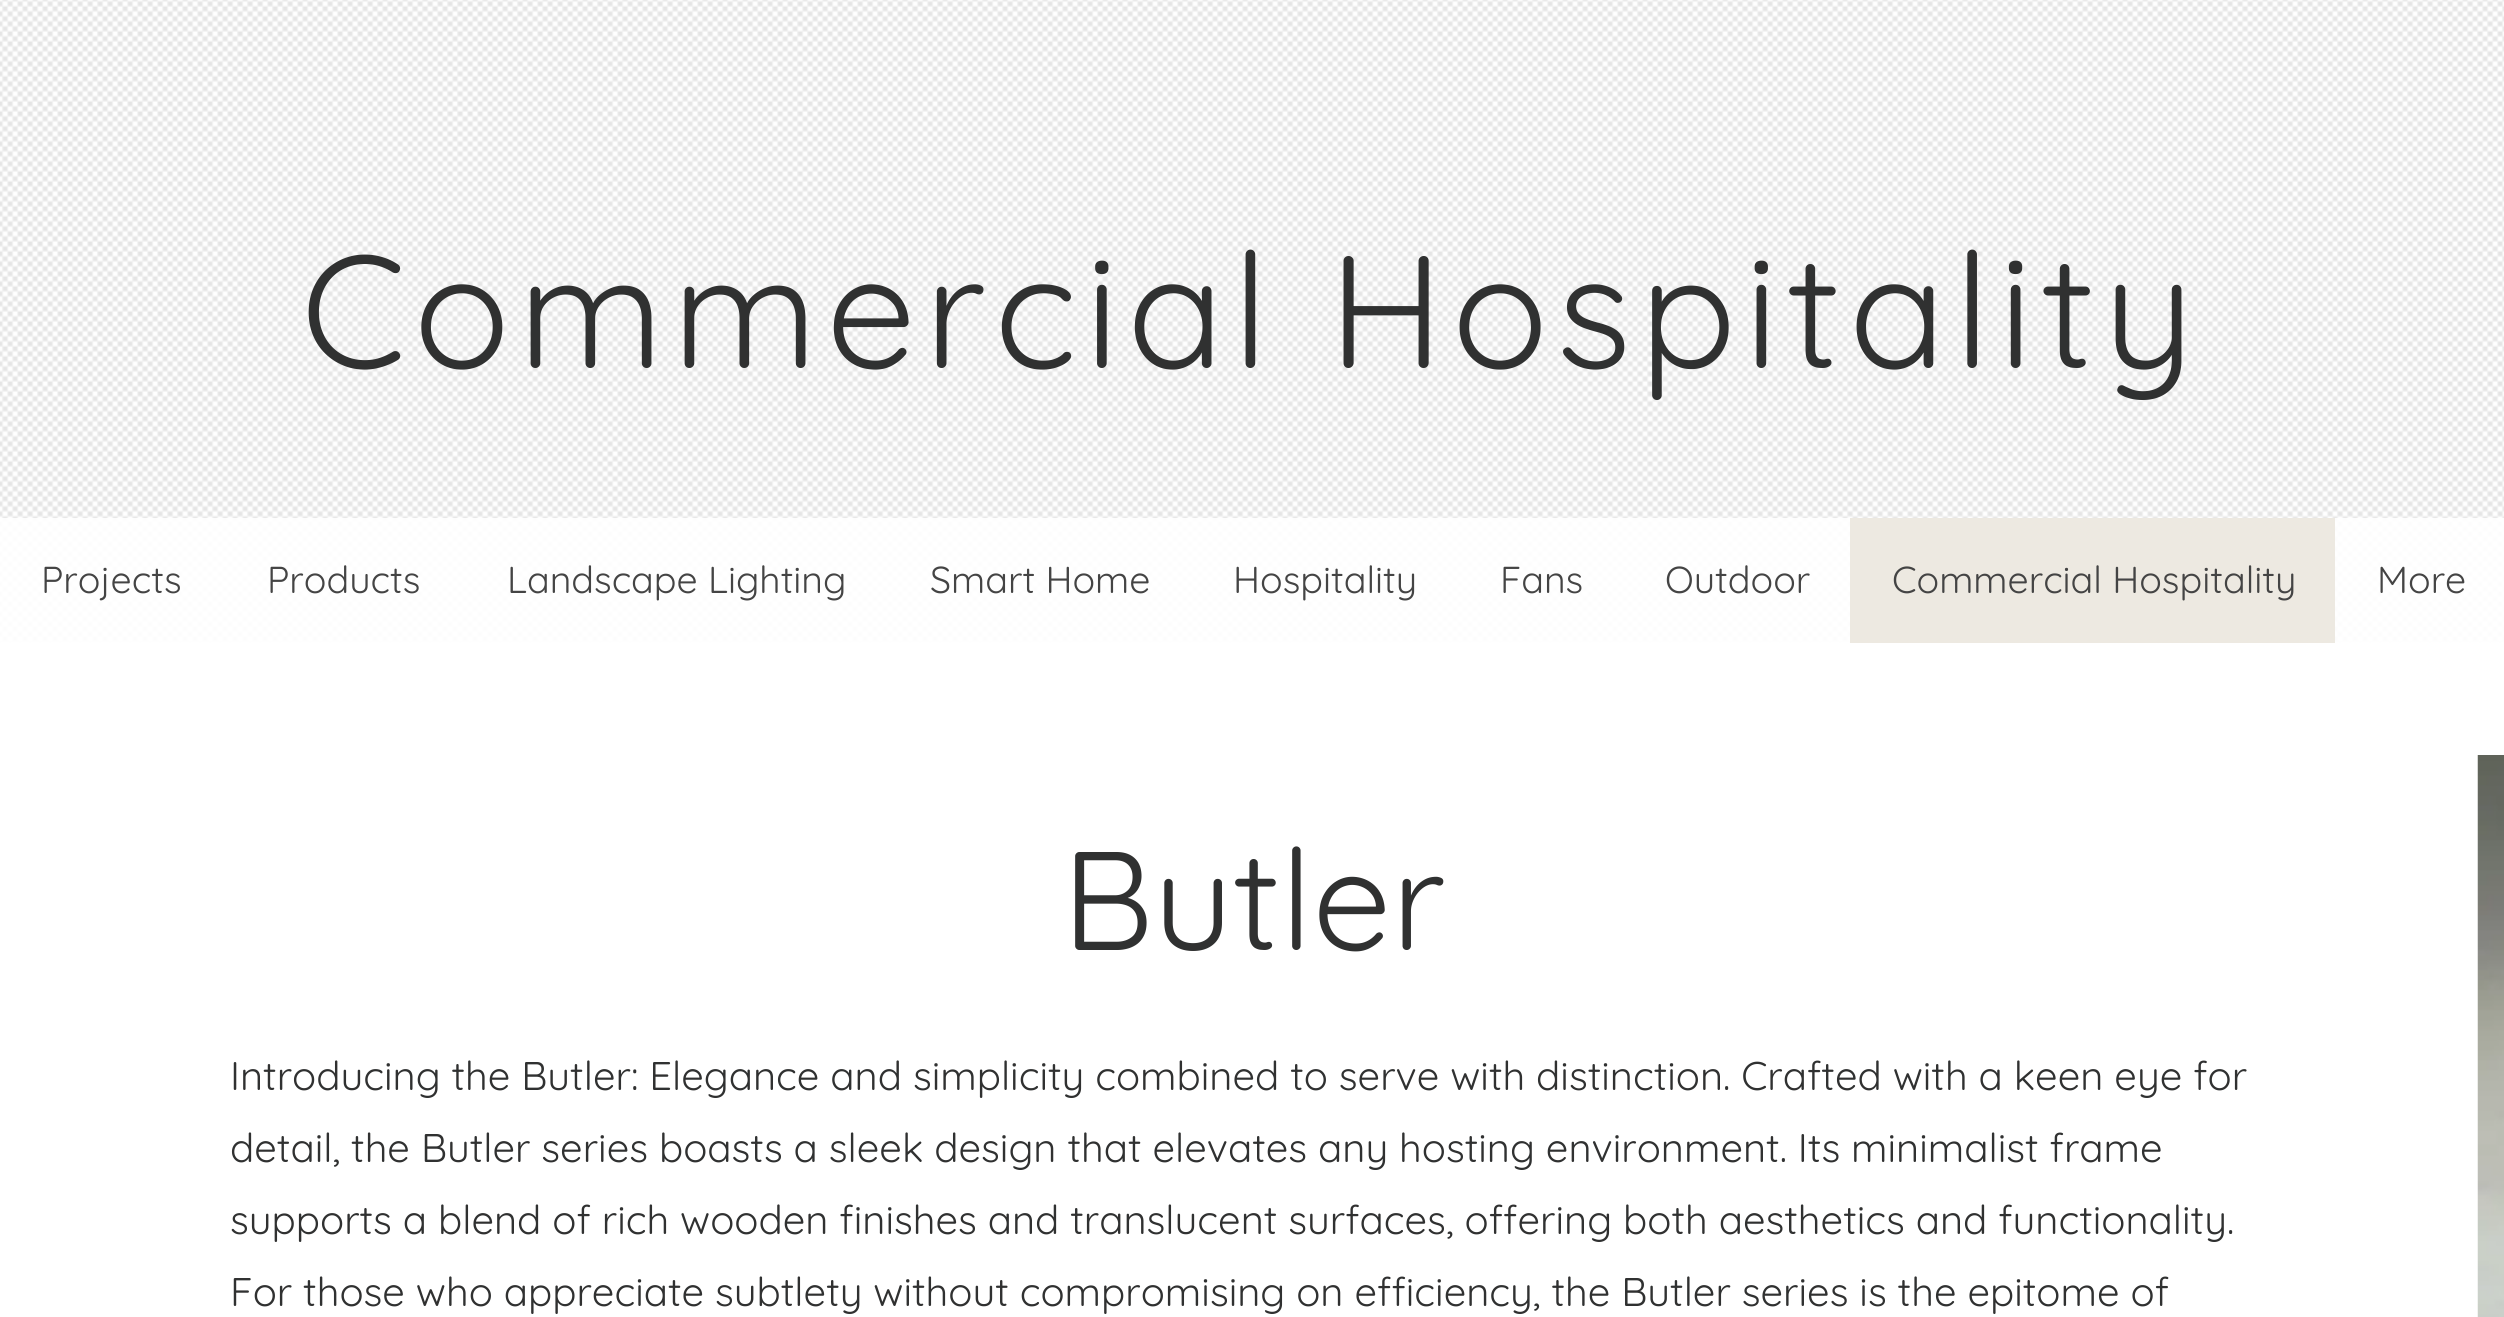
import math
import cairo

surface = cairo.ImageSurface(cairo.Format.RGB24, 2504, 1317)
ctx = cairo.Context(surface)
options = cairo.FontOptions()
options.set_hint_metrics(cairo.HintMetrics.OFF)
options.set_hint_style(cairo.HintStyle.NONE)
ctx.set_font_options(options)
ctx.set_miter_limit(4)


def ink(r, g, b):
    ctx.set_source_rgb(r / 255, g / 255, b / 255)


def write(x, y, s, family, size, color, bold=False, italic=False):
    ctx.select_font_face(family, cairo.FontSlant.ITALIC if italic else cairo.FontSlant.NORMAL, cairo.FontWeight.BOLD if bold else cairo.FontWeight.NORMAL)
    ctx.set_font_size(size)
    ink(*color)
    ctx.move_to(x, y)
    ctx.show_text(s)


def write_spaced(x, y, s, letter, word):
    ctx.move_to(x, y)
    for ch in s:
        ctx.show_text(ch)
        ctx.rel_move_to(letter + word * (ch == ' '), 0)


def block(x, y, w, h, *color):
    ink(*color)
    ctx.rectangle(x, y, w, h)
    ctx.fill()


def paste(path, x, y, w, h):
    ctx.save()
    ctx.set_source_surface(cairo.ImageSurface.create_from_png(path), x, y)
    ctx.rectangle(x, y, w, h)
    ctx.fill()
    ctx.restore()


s1 = dict(family="Quicksand", size=37.5, color=(68, 68, 68))
s2 = dict(family="Quicksand", size=140, color=(48, 49, 49))
s3 = dict(family="Quicksand", size=40, color=(48, 49, 49))

ink(255, 255, 255)
ctx.paint()
paste("pic1.png", 0, 0, 2504, 643)
ctx.select_font_face("Quicksand")
ctx.set_font_size(160)
ink(48, 49, 49)
write_spaced(301, 368, "Commercial Hospitality", 8, 0)
ctx.set_source_rgba(1, 1, 1, 0.9)
ctx.rectangle(0, 518, 2504, 125)
ctx.fill()
write(41, 593, "Projects", **s1)
write(267, 593, "Products", **s1)
write(507, 593, "Landscape Lighting", **s1)
write(930, 593, "Smart Home", **s1)
write(1233, 593, "Hospitality", **s1)
write(1500, 593, "Fans", **s1)
write(1665, 593, "Outdoor", **s1)
block(1850, 518, 485, 125, 237, 233, 225)
write(1892, 593, "Commercial Hospitality", **s1)
write(2377, 593, "More", **s1)
write(1062, 950, "Butler", **s2)
paste("pic2.png", 2477, 755, 27, 562)
write(230, 1090, "Introducing the Butler: Elegance and simplicity combined to serve with distinction. Crafted with a keen eye for", **s3)
write(230, 1162, "detail, the Butler series boasts a sleek design that elevates any hosting environment. Its minimalist frame", **s3)
write(230, 1234, "supports a blend of rich wooden finishes and translucent surfaces, offering both aesthetics and functionality.", **s3)
write(230, 1306, "For those who appreciate subtlety without compromising on efficiency, the Butler series is the epitome of", **s3)
surface.write_to_png("screenshot.png")
